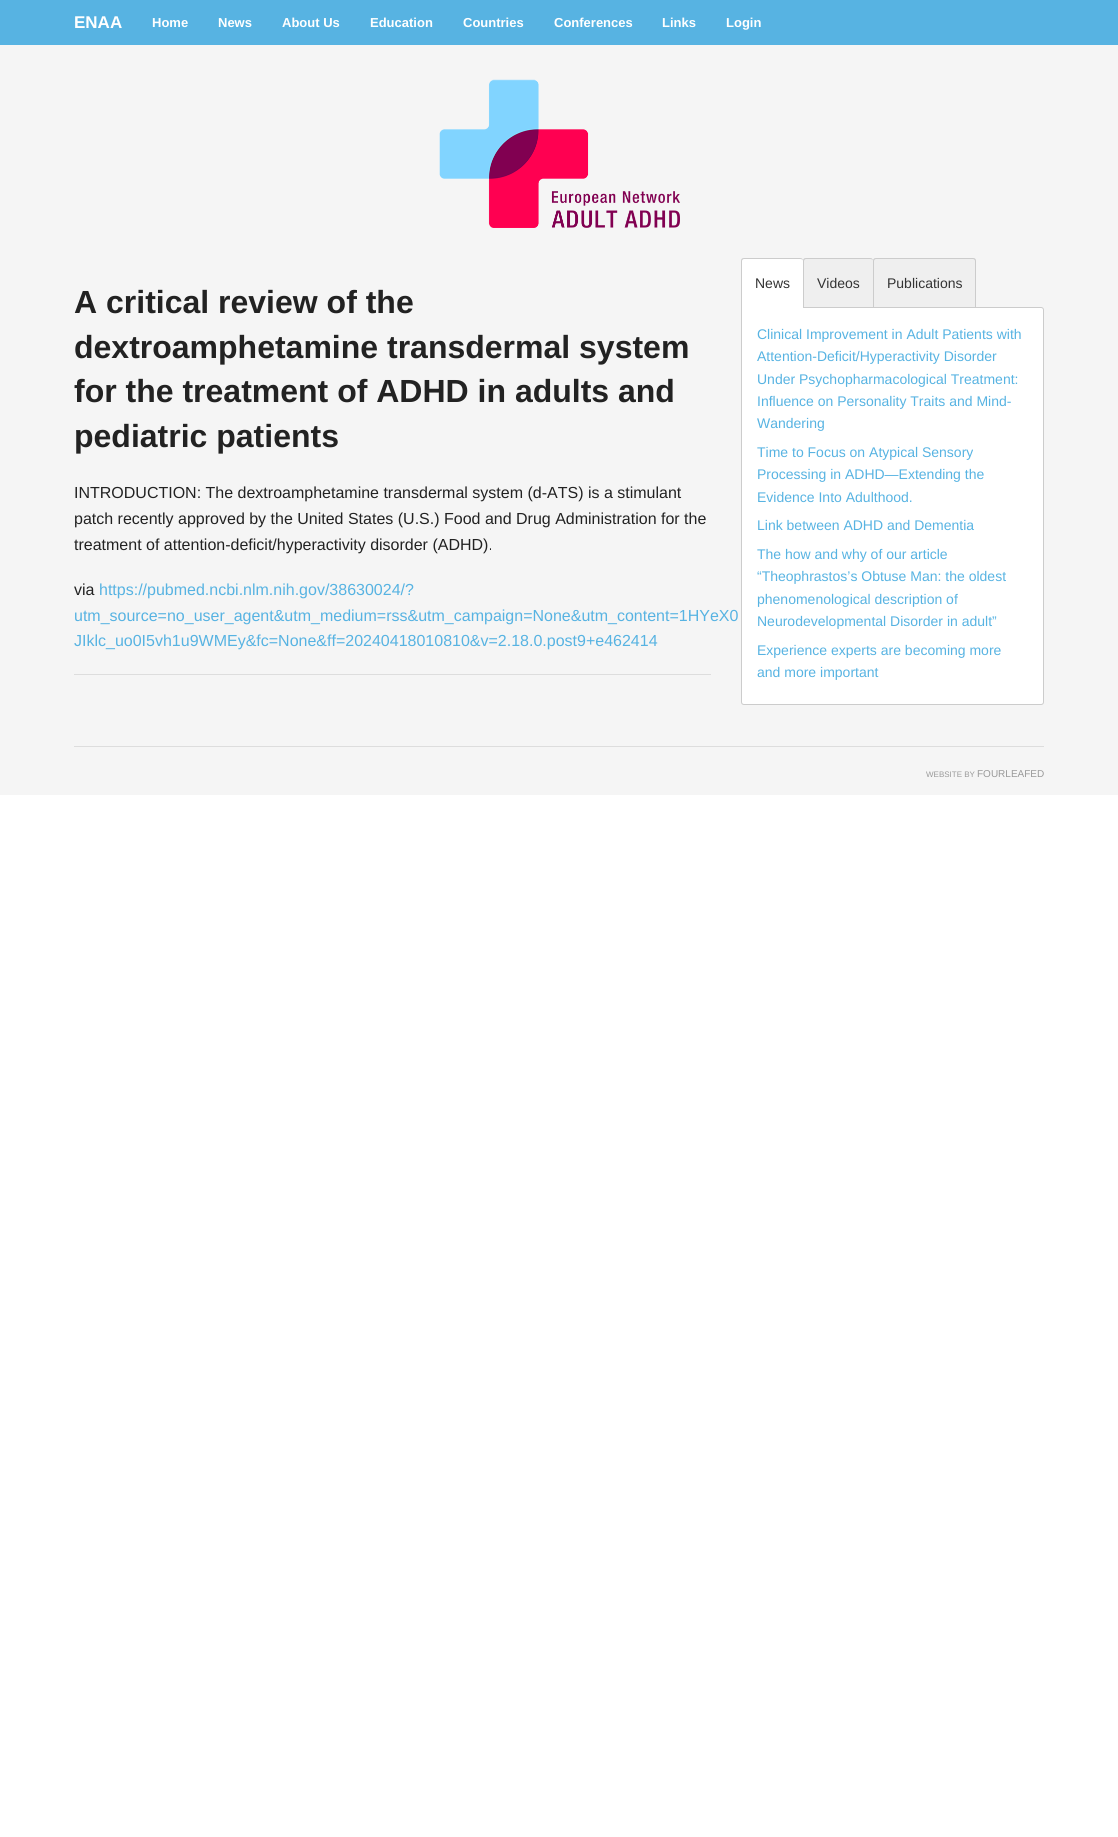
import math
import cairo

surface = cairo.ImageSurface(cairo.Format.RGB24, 1118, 1837)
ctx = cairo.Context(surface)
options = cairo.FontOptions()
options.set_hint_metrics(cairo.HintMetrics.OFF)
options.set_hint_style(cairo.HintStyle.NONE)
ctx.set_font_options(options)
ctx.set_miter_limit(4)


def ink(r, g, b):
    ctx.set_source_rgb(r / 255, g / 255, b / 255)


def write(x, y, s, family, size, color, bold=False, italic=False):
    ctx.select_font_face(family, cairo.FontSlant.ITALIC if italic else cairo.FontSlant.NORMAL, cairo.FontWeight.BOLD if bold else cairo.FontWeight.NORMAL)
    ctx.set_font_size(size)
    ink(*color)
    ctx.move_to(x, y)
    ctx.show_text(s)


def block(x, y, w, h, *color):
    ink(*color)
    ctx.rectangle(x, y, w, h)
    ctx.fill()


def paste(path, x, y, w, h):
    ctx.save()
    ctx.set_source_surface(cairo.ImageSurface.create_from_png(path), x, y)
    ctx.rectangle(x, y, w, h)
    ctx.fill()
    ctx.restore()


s1 = dict(family="Liberation Sans", size=17, color=(255, 255, 255), bold=True)
s2 = dict(family="Liberation Sans", size=13, color=(255, 255, 255), bold=True)
s3 = dict(family="Liberation Sans", size=32, color=(34, 34, 34), bold=True)
s4 = dict(family="Liberation Sans", size=16, color=(34, 34, 34))
s5 = dict(family="Liberation Sans", size=16, color=(87, 179, 226))
s6 = dict(family="Liberation Sans", size=14, color=(51, 51, 51))
s7 = dict(family="Liberation Sans", size=14, color=(87, 179, 226))
s8 = dict(family="Liberation Sans", size=8, color=(153, 153, 153))
s9 = dict(family="Liberation Sans", size=10, color=(153, 153, 153))

ink(255, 255, 255)
ctx.paint()
block(0, 45, 1118, 750, 245, 245, 245)
block(0, 0, 1118, 45, 87, 179, 226)
write(74, 28, "ENAA", **s1)
write(152, 27, "Home", **s2)
write(218, 27, "News", **s2)
write(282, 27, "About Us", **s2)
write(370, 27, "Education", **s2)
write(463, 27, "Countries", **s2)
write(554, 27, "Conferences", **s2)
write(662, 27, "Links", **s2)
write(726, 27, "Login", **s2)
paste("pic1.png", 439, 79, 241, 149)
write(74, 313, "A critical review of the", **s3)
write(74, 358, "dextroamphetamine transdermal system", **s3)
write(74, 402, "for the treatment of ADHD in adults and", **s3)
write(74, 447, "pediatric patients", **s3)
write(74, 498, "INTRODUCTION: The dextroamphetamine transdermal system (d-ATS) is a stimulant", **s4)
write(74, 524, "patch recently approved by the United States (U.S.) Food and Drug Administration for the", **s4)
write(74, 550, "treatment of attention-deficit/hyperactivity disorder (ADHD).", **s4)
write(74, 595, "via", **s4)
write(99, 595, "https://pubmed.ncbi.nlm.nih.gov/38630024/?", **s5)
write(74, 621, "utm_source=no_user_agent&utm_medium=rss&utm_campaign=None&utm_content=1HYeX0", **s5)
write(74, 646, "JIklc_uo0I5vh1u9WMEy&fc=None&ff=20240418010810&v=2.18.0.post9+e462414", **s5)
block(74, 674, 637, 1, 221, 221, 221)
ink(239, 239, 239)
ctx.new_path()
ctx.move_to(806, 258)
ctx.line_to(870, 258)
ctx.curve_to(871.5, 258, 873, 259.5, 873, 261)
ctx.line_to(873, 308)
ctx.line_to(803, 308)
ctx.line_to(803, 261)
ctx.curve_to(803, 259.5, 804.5, 258, 806, 258)
ctx.close_path()
ctx.fill()
ink(204, 204, 204)
ctx.set_fill_rule(cairo.FillRule.EVEN_ODD)
ctx.new_path()
ctx.move_to(806, 258)
ctx.line_to(870, 258)
ctx.curve_to(872, 258, 873, 259, 873, 261)
ctx.line_to(873, 308)
ctx.line_to(803, 308)
ctx.line_to(803, 261)
ctx.curve_to(803, 259, 804, 258, 806, 258)
ctx.close_path()
ctx.move_to(806, 259)
ctx.line_to(870, 259)
ctx.curve_to(872, 259, 873, 260, 873, 261)
ctx.line_to(873, 308)
ctx.line_to(804, 308)
ctx.line_to(804, 261)
ctx.curve_to(804, 260, 805, 259, 806, 259)
ctx.close_path()
ctx.fill()
write(817, 288, "Videos", **s6)
ink(239, 239, 239)
ctx.new_path()
ctx.move_to(876, 258)
ctx.line_to(973, 258)
ctx.curve_to(974.5, 258, 976, 259.5, 976, 261)
ctx.line_to(976, 308)
ctx.line_to(873, 308)
ctx.line_to(873, 261)
ctx.curve_to(873, 259.5, 874.5, 258, 876, 258)
ctx.close_path()
ctx.fill()
ink(204, 204, 204)
ctx.new_path()
ctx.move_to(876, 258)
ctx.line_to(973, 258)
ctx.curve_to(975, 258, 976, 259, 976, 261)
ctx.line_to(976, 308)
ctx.line_to(873, 308)
ctx.line_to(873, 261)
ctx.curve_to(873, 259, 874, 258, 876, 258)
ctx.close_path()
ctx.move_to(876, 259)
ctx.line_to(973, 259)
ctx.curve_to(974, 259, 975, 260, 975, 261)
ctx.line_to(975, 308)
ctx.line_to(874, 308)
ctx.line_to(874, 261)
ctx.curve_to(874, 260, 875, 259, 876, 259)
ctx.close_path()
ctx.fill()
write(887, 288, "Publications", **s6)
ink(255, 255, 255)
ctx.new_path()
ctx.move_to(741.5, 307.5)
ctx.line_to(1041, 307.5)
ctx.curve_to(1042.5, 307.5, 1043.5, 308.5, 1043.5, 310)
ctx.line_to(1043.5, 702)
ctx.curve_to(1043.5, 703.5, 1042.5, 704.5, 1041, 704.5)
ctx.line_to(744, 704.5)
ctx.curve_to(742.5, 704.5, 741.5, 703.5, 741.5, 702)
ctx.close_path()
ctx.fill_preserve()
ink(204, 204, 204)
ctx.set_line_width(1)
ctx.stroke()
ink(255, 255, 255)
ctx.new_path()
ctx.move_to(744, 258)
ctx.line_to(800, 258)
ctx.curve_to(801.5, 258, 803, 259.5, 803, 261)
ctx.line_to(803, 308)
ctx.line_to(741, 308)
ctx.line_to(741, 261)
ctx.curve_to(741, 259.5, 742.5, 258, 744, 258)
ctx.close_path()
ctx.fill()
ink(204, 204, 204)
ctx.new_path()
ctx.move_to(744, 258)
ctx.line_to(800, 258)
ctx.curve_to(802, 258, 803, 259, 803, 261)
ctx.line_to(803, 308)
ctx.line_to(741, 308)
ctx.line_to(741, 261)
ctx.curve_to(741, 259, 742, 258, 744, 258)
ctx.close_path()
ctx.move_to(744, 259)
ctx.line_to(800, 259)
ctx.curve_to(802, 259, 803, 260, 803, 261)
ctx.line_to(803, 308)
ctx.line_to(742, 308)
ctx.line_to(742, 261)
ctx.curve_to(742, 260, 743, 259, 744, 259)
ctx.close_path()
ctx.fill()
write(755, 288, "News", **s6)
write(757, 339, "Clinical Improvement in Adult Patients with", **s7)
write(757, 361, "Attention-Deficit/Hyperactivity Disorder", **s7)
write(757, 384, "Under Psychopharmacological Treatment:", **s7)
write(757, 406, "Influence on Personality Traits and Mind-", **s7)
write(757, 428, "Wandering", **s7)
write(757, 457, "Time to Focus on Atypical Sensory", **s7)
write(757, 479, "Processing in ADHD—Extending the", **s7)
write(757, 502, "Evidence Into Adulthood.", **s7)
write(757, 530, "Link between ADHD and Dementia", **s7)
write(757, 559, "The how and why of our article", **s7)
write(757, 581, "“Theophrastos’s Obtuse Man: the oldest", **s7)
write(757, 604, "phenomenological description of", **s7)
write(757, 626, "Neurodevelopmental Disorder in adult”", **s7)
write(757, 655, "Experience experts are becoming more", **s7)
write(757, 677, "and more important", **s7)
block(74, 746, 970, 1, 221, 221, 221)
write(926, 777, "WEBSITE BY", **s8)
write(977, 777, "FOURLEAFED", **s9)
surface.write_to_png("screenshot.png")
